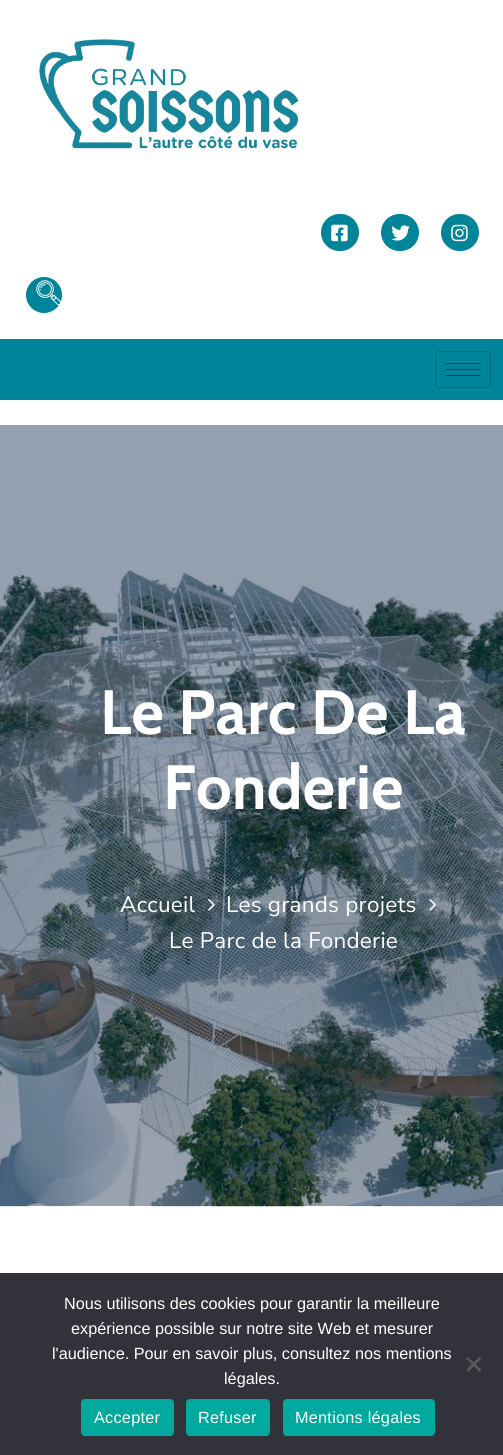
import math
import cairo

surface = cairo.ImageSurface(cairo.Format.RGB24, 503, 1455)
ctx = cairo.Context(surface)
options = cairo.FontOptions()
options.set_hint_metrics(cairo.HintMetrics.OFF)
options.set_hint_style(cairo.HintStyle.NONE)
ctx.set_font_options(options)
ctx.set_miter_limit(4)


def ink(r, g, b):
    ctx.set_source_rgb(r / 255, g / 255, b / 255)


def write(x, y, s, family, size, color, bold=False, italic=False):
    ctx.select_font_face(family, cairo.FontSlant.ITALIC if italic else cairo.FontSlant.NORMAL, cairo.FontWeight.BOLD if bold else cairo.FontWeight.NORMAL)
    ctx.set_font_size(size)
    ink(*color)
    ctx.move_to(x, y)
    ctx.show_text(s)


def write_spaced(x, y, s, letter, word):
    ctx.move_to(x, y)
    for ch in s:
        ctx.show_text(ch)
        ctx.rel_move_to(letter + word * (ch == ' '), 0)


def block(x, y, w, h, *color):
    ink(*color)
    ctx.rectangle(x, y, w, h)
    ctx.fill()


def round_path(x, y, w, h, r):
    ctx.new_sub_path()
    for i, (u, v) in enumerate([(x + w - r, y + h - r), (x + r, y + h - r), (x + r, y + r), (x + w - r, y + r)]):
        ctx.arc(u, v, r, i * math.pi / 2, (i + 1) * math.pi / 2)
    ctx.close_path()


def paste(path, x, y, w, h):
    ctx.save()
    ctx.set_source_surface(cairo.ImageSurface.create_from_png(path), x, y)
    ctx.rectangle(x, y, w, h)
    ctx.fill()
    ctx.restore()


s1 = dict(family="Liberation Sans", size=16.25, color=(255, 255, 255))

ink(255, 255, 255)
ctx.paint()
paste("pic1.png", 39, 39, 260, 110)
ink(0, 132, 154)
round_path(321, 214, 38, 37, 18.5)
ctx.fill()
paste("pic2.png", 331, 224, 17, 18)
round_path(381, 214, 38, 37, 18.5)
ctx.fill()
paste("pic3.png", 391, 225, 19, 16)
round_path(441, 214, 38, 37, 18.5)
ctx.fill()
paste("pic4.png", 451, 224, 17, 18)
ctx.arc(44, 295, 18.5, 0, 2 * math.pi)
ctx.fill_preserve()
ink(255, 255, 255)
ctx.set_line_width(1)
ctx.stroke()
paste("pic5.png", 36, 280, 26, 26)
block(0, 339, 503, 61, 0, 132, 154)
round_path(435.5, 351.5, 55, 36, 3.5)
ink(0, 106, 123)
ctx.stroke()
block(446, 363, 34, 1, 0, 66, 77)
block(446, 369, 34, 1, 0, 66, 77)
block(446, 375, 34, 1, 0, 66, 77)
paste("pic6.png", 0, 425, 503, 782)
ctx.select_font_face("Cabin", cairo.FontSlant.NORMAL, cairo.FontWeight.BOLD)
ctx.set_font_size(62.5)
ink(255, 255, 255)
write_spaced(100, 734, "Le Parc De La", 0.25, 0)
write_spaced(163, 809, "Fonderie", 0.25, 0)
ctx.select_font_face("Nunito Sans")
ctx.set_font_size(22.5)
write_spaced(120, 912, "Accueil", 0.25, 0)
paste("pic7.png", 208, 899, 7, 12)
write_spaced(226, 912, "Les grands projets", 0.25, 0)
paste("pic8.png", 429, 899, 7, 12)
write_spaced(169, 948, "Le Parc de la Fonderie", 0.25, 0)
block(0, 1273, 503, 182, 50, 50, 58)
write(64, 1309, "Nous utilisons des cookies pour garantir la meilleure", **s1)
write(71, 1334, "expérience possible sur notre site Web et mesurer", **s1)
write(52, 1359, "l'audience. Pour en savoir plus, consultez nos mentions", **s1)
write(224, 1384, "légales.", **s1)
ink(89, 89, 93)
ctx.new_path()
ctx.move_to(479.5, 1357)
ctx.line_to(481.5, 1358.5)
ctx.line_to(468, 1372)
ctx.line_to(466, 1370)
ctx.close_path()
ctx.fill()
ctx.new_path()
ctx.move_to(466, 1358.5)
ctx.line_to(468, 1357)
ctx.line_to(481.5, 1370)
ctx.line_to(479.5, 1372)
ctx.close_path()
ctx.fill()
ink(0, 169, 157)
round_path(81, 1399, 93, 37, 4)
ctx.fill()
ink(255, 255, 255)
write_spaced(94, 1423, "Accepter", 0.25, 0)
ink(0, 169, 157)
round_path(186, 1399, 84, 37, 4)
ctx.fill()
ink(255, 255, 255)
write_spaced(198, 1423, "Refuser", 0.25, 0)
ink(0, 169, 157)
round_path(283, 1399, 152, 37, 4)
ctx.fill()
ink(255, 255, 255)
write_spaced(295, 1423, "Mentions légales", 0.25, 0)
surface.write_to_png("screenshot.png")
